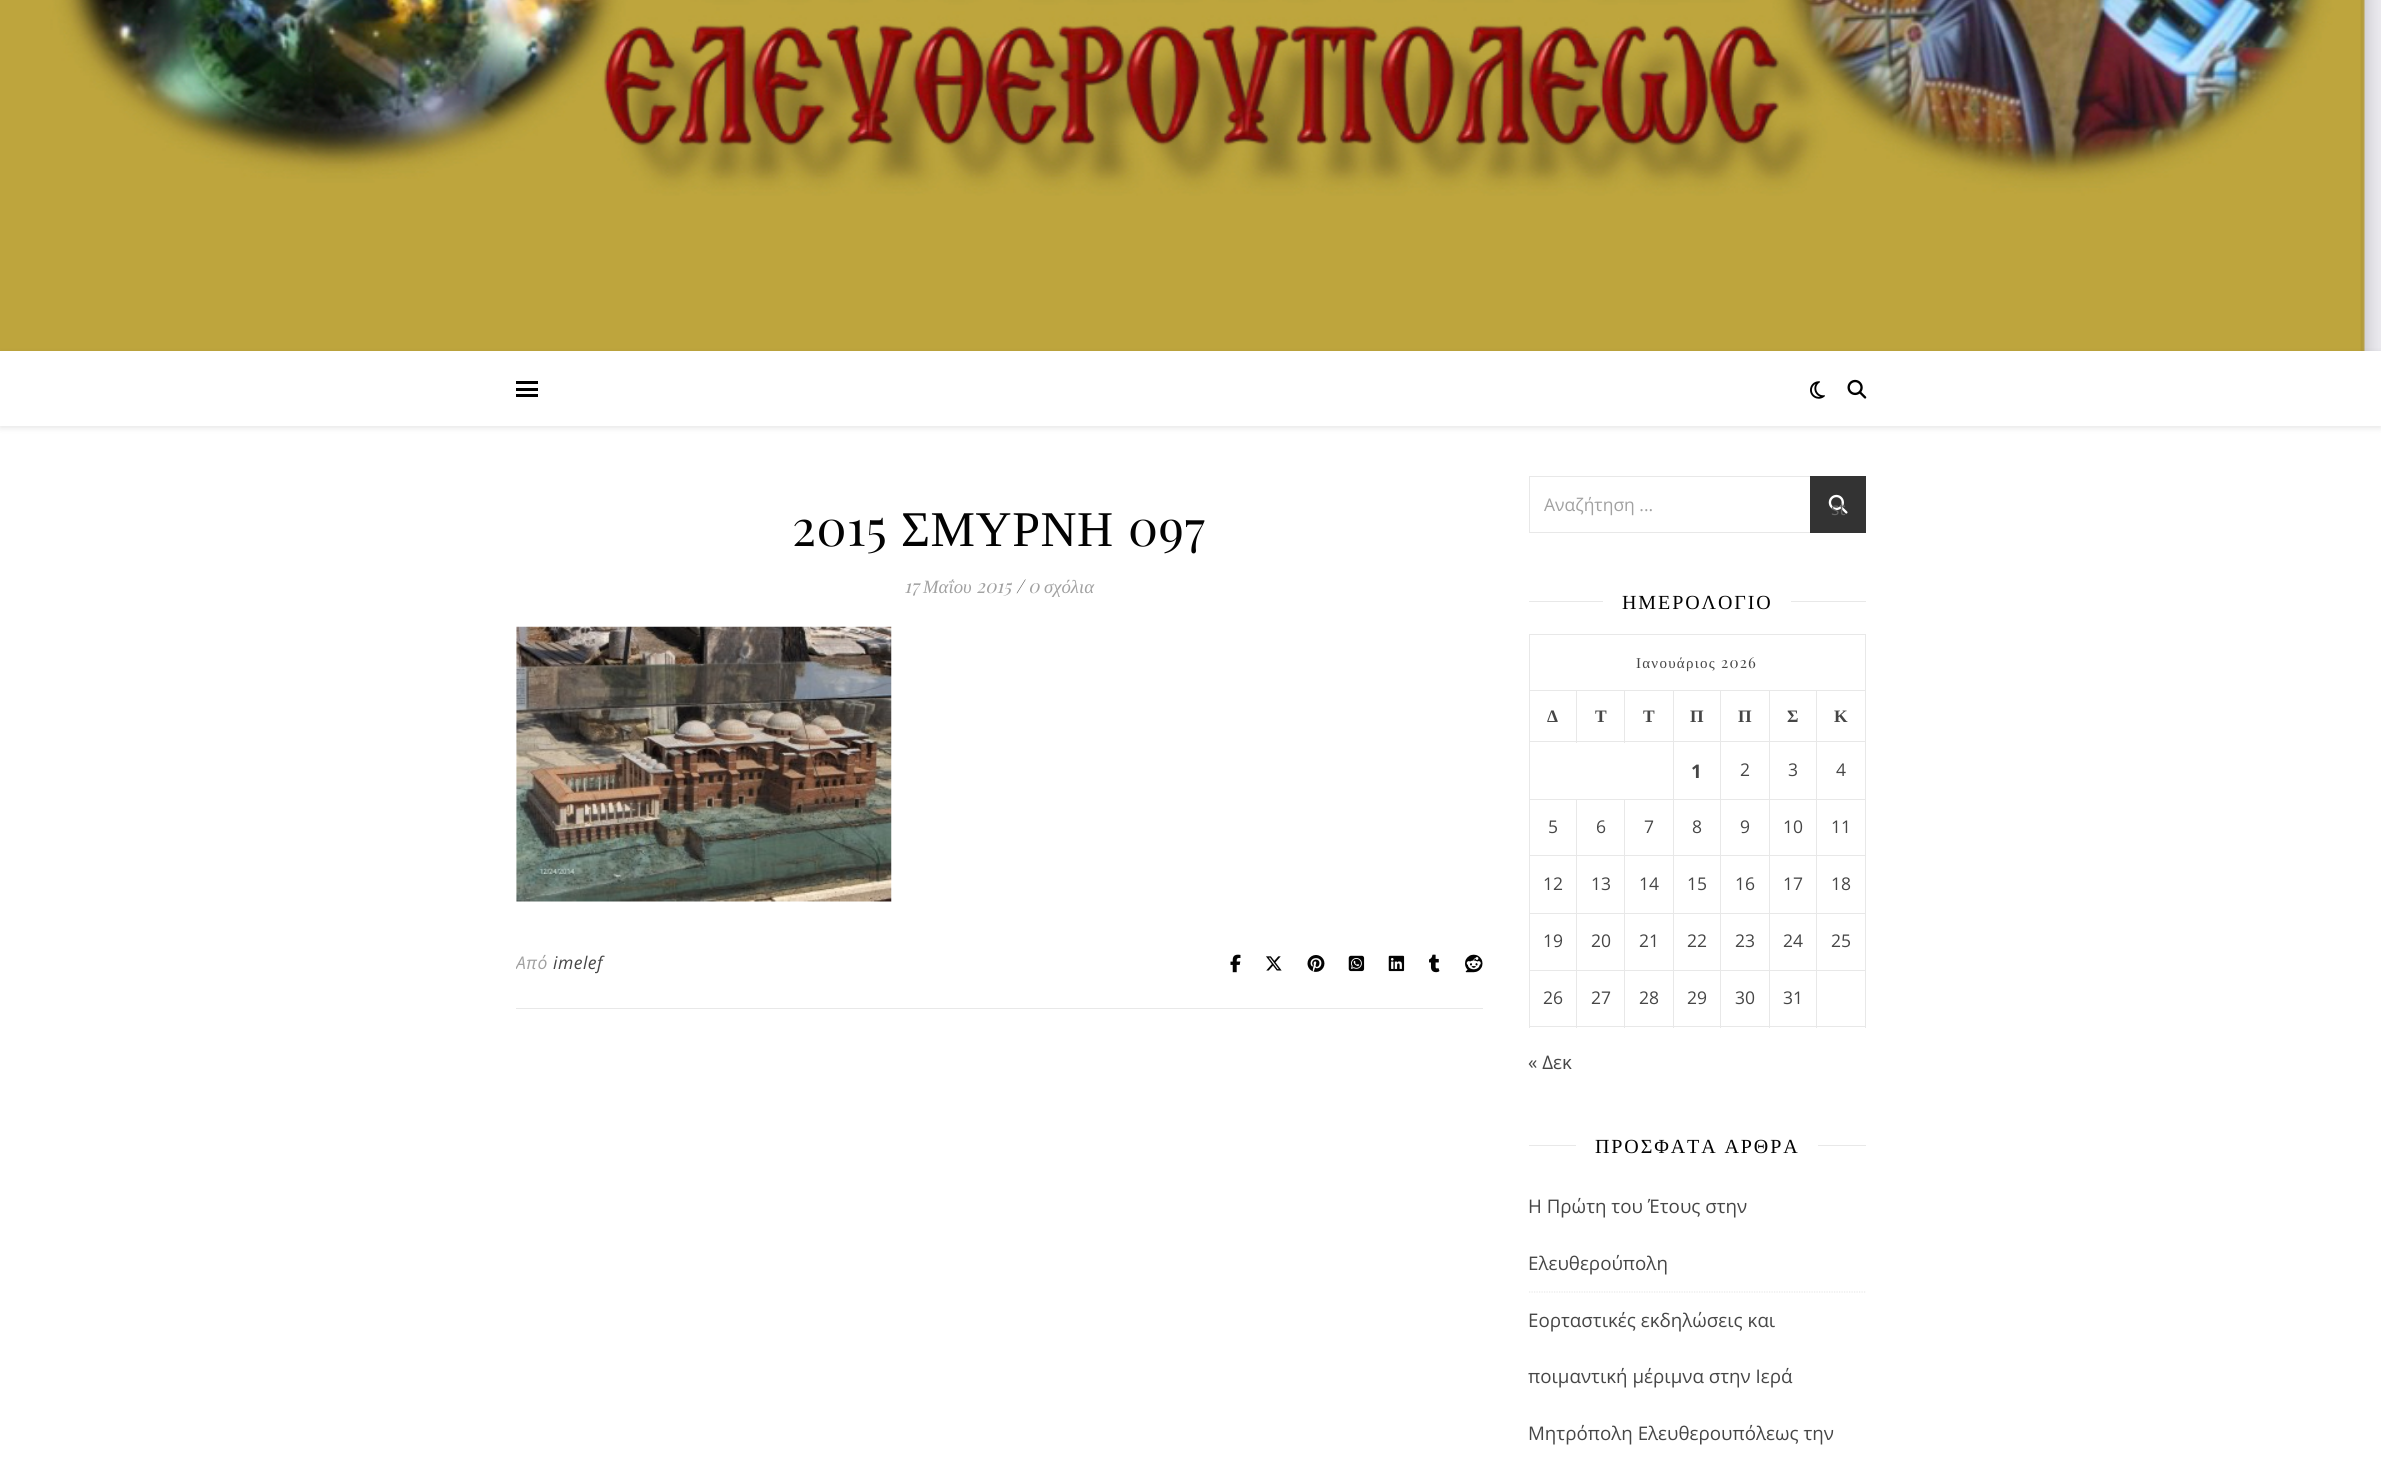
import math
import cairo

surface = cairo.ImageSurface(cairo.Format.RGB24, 2381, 1464)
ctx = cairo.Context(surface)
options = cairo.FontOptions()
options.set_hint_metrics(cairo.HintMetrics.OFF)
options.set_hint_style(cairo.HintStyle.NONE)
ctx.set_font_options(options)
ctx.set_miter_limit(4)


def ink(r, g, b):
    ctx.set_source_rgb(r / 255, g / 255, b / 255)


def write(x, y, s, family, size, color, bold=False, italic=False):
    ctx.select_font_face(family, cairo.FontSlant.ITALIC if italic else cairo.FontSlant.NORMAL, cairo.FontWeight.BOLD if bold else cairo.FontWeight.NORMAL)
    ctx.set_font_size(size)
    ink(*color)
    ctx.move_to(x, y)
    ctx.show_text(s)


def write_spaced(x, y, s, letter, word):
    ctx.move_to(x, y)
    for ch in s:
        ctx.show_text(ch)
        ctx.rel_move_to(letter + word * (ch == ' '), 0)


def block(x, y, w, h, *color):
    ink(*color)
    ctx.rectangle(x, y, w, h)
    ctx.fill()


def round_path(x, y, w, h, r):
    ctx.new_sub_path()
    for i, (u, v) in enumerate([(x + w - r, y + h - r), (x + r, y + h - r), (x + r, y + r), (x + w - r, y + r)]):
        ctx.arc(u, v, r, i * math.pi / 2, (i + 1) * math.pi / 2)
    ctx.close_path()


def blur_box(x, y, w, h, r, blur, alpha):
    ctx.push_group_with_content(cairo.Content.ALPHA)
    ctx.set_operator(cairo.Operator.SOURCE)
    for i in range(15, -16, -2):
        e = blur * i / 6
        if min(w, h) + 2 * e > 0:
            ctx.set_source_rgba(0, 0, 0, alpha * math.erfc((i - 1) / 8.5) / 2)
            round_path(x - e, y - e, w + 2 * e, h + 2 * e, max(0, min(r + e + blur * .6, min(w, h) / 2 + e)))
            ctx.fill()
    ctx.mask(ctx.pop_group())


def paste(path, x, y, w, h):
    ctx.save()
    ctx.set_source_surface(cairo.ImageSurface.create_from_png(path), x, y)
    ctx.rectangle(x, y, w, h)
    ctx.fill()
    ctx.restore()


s1 = dict(family="Playfair Display", size=18.75, color=(161, 161, 161), italic=True)
s2 = dict(family="Liberation Serif", size=18.75, color=(161, 161, 161), italic=True)
s3 = dict(family="Playfair Display", size=18.75, color=(70, 70, 70), italic=True)
s4 = dict(family="Open Sans", size=17.5, color=(161, 161, 161))
s5 = dict(family="Open Sans", size=17.5, color=(103, 103, 103))
s6 = dict(family="Liberation Serif", size=17.5, color=(70, 70, 70), bold=True)
s7 = dict(family="Open Sans", size=18.75, color=(70, 70, 70), bold=True)
s8 = dict(family="Open Sans", size=17.5, color=(70, 70, 70))
s9 = dict(family="Open Sans", size=18.75, color=(70, 70, 70))

ink(255, 255, 255)
ctx.paint()
paste("pic1.png", 0, 0, 2381, 351)
ink(0, 0, 0)
blur_box(0, 353, 2381, 75, 0, 3, 0.1)
block(0, 351, 2381, 75, 255, 255, 255)
block(516, 381, 22, 3, 0, 0, 0)
block(516, 388, 22, 3, 0, 0, 0)
block(516, 394, 22, 3, 0, 0, 0)
paste("pic2.png", 1810, 381, 15, 18)
paste("pic3.png", 1847, 379, 20, 20)
ctx.select_font_face("Playfair Display")
ctx.set_font_size(50)
ink(3, 3, 3)
write_spaced(792, 546, "2015", 0.5, 0)
ctx.select_font_face("Liberation Serif")
write_spaced(901, 546, "ΣΜΥΡΝΗ", 0.5, 0)
ctx.select_font_face("Playfair Display")
write_spaced(1128, 546, "097", 0.5, 0)
write(904, 593, "17", **s1)
write(923, 593, "Μαΐου", **s2)
write(976, 593, "2015", **s1)
write(1016, 593, "/", **s3)
write(1028, 593, "0", **s1)
write(1044, 593, "σχόλια", **s2)
paste("pic4.png", 516, 626, 376, 276)
block(516, 1008, 967, 1, 232, 232, 232)
ctx.save()
ctx.rectangle(516, 920, 967, 88)
ctx.clip()
ctx.select_font_face("Open Sans", cairo.FontSlant.ITALIC)
ctx.set_font_size(17.5)
ink(161, 161, 161)
write_spaced(516, 969, "Από", 0.5, 0)
ctx.restore()
ctx.select_font_face("Open Sans", cairo.FontSlant.ITALIC)
ctx.set_font_size(17.5)
ink(70, 70, 70)
write_spaced(553, 969, "imelef", 0.5, 0)
paste("pic5.png", 1230, 954, 11, 19)
paste("pic6.png", 1266, 956, 16, 15)
paste("pic7.png", 1307, 955, 18, 17)
paste("pic8.png", 1348, 955, 17, 17)
paste("pic9.png", 1388, 955, 17, 17)
paste("pic10.png", 1429, 954, 11, 19)
paste("pic11.png", 1465, 954, 18, 19)
ctx.rectangle(1529.5, 476.5, 336, 56)
ink(232, 232, 232)
ctx.set_line_width(1)
ctx.stroke()
write(1544, 511, "Αναζήτηση ...", **s4)
block(1810, 476, 56, 57, 51, 51, 51)
paste("pic12.png", 1828, 494, 20, 20)
write(1831, 515, "st", **s5)
block(1529, 601, 74, 1, 232, 232, 232)
ctx.select_font_face("Liberation Serif")
ctx.set_font_size(20)
ink(3, 3, 3)
write_spaced(1622, 609, "ΗΜΕΡΟΛΟΓΙΟ", 1.9, 0)
block(1791, 601, 75, 1, 232, 232, 232)
block(1529, 634, 337, 1, 232, 232, 232)
block(1865, 634, 1, 394, 232, 232, 232)
block(1529, 1026, 337, 1, 232, 232, 232)
block(1529, 634, 1, 394, 232, 232, 232)
ctx.set_font_size(15)
ink(70, 70, 70)
write_spaced(1636, 668, "Ιανουάριος", 1.25, 0)
ctx.select_font_face("Playfair Display")
write_spaced(1721, 668, "2026", 1.25, 0)
block(1529, 690, 337, 1, 232, 232, 232)
write(1547, 722, "Δ", **s6)
block(1529, 741, 337, 1, 232, 232, 232)
block(1576, 690, 1, 53, 232, 232, 232)
write(1595, 722, "Τ", **s6)
block(1624, 690, 1, 53, 232, 232, 232)
write(1643, 722, "Τ", **s6)
write(1690, 722, "Π", **s6)
write(1738, 722, "Π", **s6)
write(1787, 722, "Σ", **s6)
write(1834, 722, "Κ", **s6)
write(1691, 778, "1", **s7)
write(1740, 776, "2", **s8)
write(1788, 776, "3", **s8)
write(1836, 776, "4", **s8)
block(1529, 799, 337, 1, 232, 232, 232)
write(1548, 833, "5", **s8)
write(1596, 833, "6", **s8)
write(1644, 833, "7", **s8)
write(1692, 833, "8", **s8)
write(1740, 833, "9", **s8)
write(1783, 833, "10", **s8)
write(1831, 833, "11", **s8)
block(1529, 855, 337, 1, 232, 232, 232)
write(1543, 890, "12", **s8)
write(1591, 890, "13", **s8)
write(1639, 890, "14", **s8)
write(1687, 890, "15", **s8)
write(1735, 890, "16", **s8)
write(1783, 890, "17", **s8)
write(1831, 890, "18", **s8)
block(1529, 913, 337, 1, 232, 232, 232)
write(1543, 947, "19", **s8)
write(1591, 947, "20", **s8)
write(1639, 947, "21", **s8)
write(1687, 947, "22", **s8)
write(1735, 947, "23", **s8)
write(1783, 947, "24", **s8)
write(1831, 947, "25", **s8)
block(1529, 970, 337, 1, 232, 232, 232)
write(1543, 1004, "26", **s8)
block(1576, 799, 1, 229, 232, 232, 232)
write(1591, 1004, "27", **s8)
block(1624, 799, 1, 229, 232, 232, 232)
write(1639, 1004, "28", **s8)
block(1673, 690, 1, 338, 232, 232, 232)
write(1687, 1004, "29", **s8)
block(1720, 690, 1, 338, 232, 232, 232)
write(1735, 1004, "30", **s8)
block(1769, 690, 1, 338, 232, 232, 232)
write(1783, 1004, "31", **s8)
block(1816, 690, 1, 338, 232, 232, 232)
write(1528, 1069, "« Δεκ", **s9)
block(1529, 1145, 47, 1, 232, 232, 232)
ctx.select_font_face("Liberation Serif")
ctx.set_font_size(20)
ink(3, 3, 3)
write_spaced(1595, 1153, "ΠΡΟΣΦΑΤΑ ΑΡΘΡΑ", 1.9, 0)
block(1818, 1145, 48, 1, 232, 232, 232)
ctx.new_path()
ctx.move_to(1529, 1292)
ctx.line_to(1866, 1292)
ctx.set_line_width(1.2)
ctx.set_dash([1.25, 1.25])
ctx.stroke()
write(1528, 1213, "Η Πρώτη του Έτους στην", **s9)
write(1528, 1270, "Ελευθερούπολη", **s9)
write(1528, 1327, "Εορταστικές εκδηλώσεις και", **s9)
write(1528, 1383, "ποιμαντική μέριμνα στην Ιερά", **s9)
write(1528, 1440, "Μητρόπολη Ελευθερουπόλεως την", **s9)
surface.write_to_png("screenshot.png")
